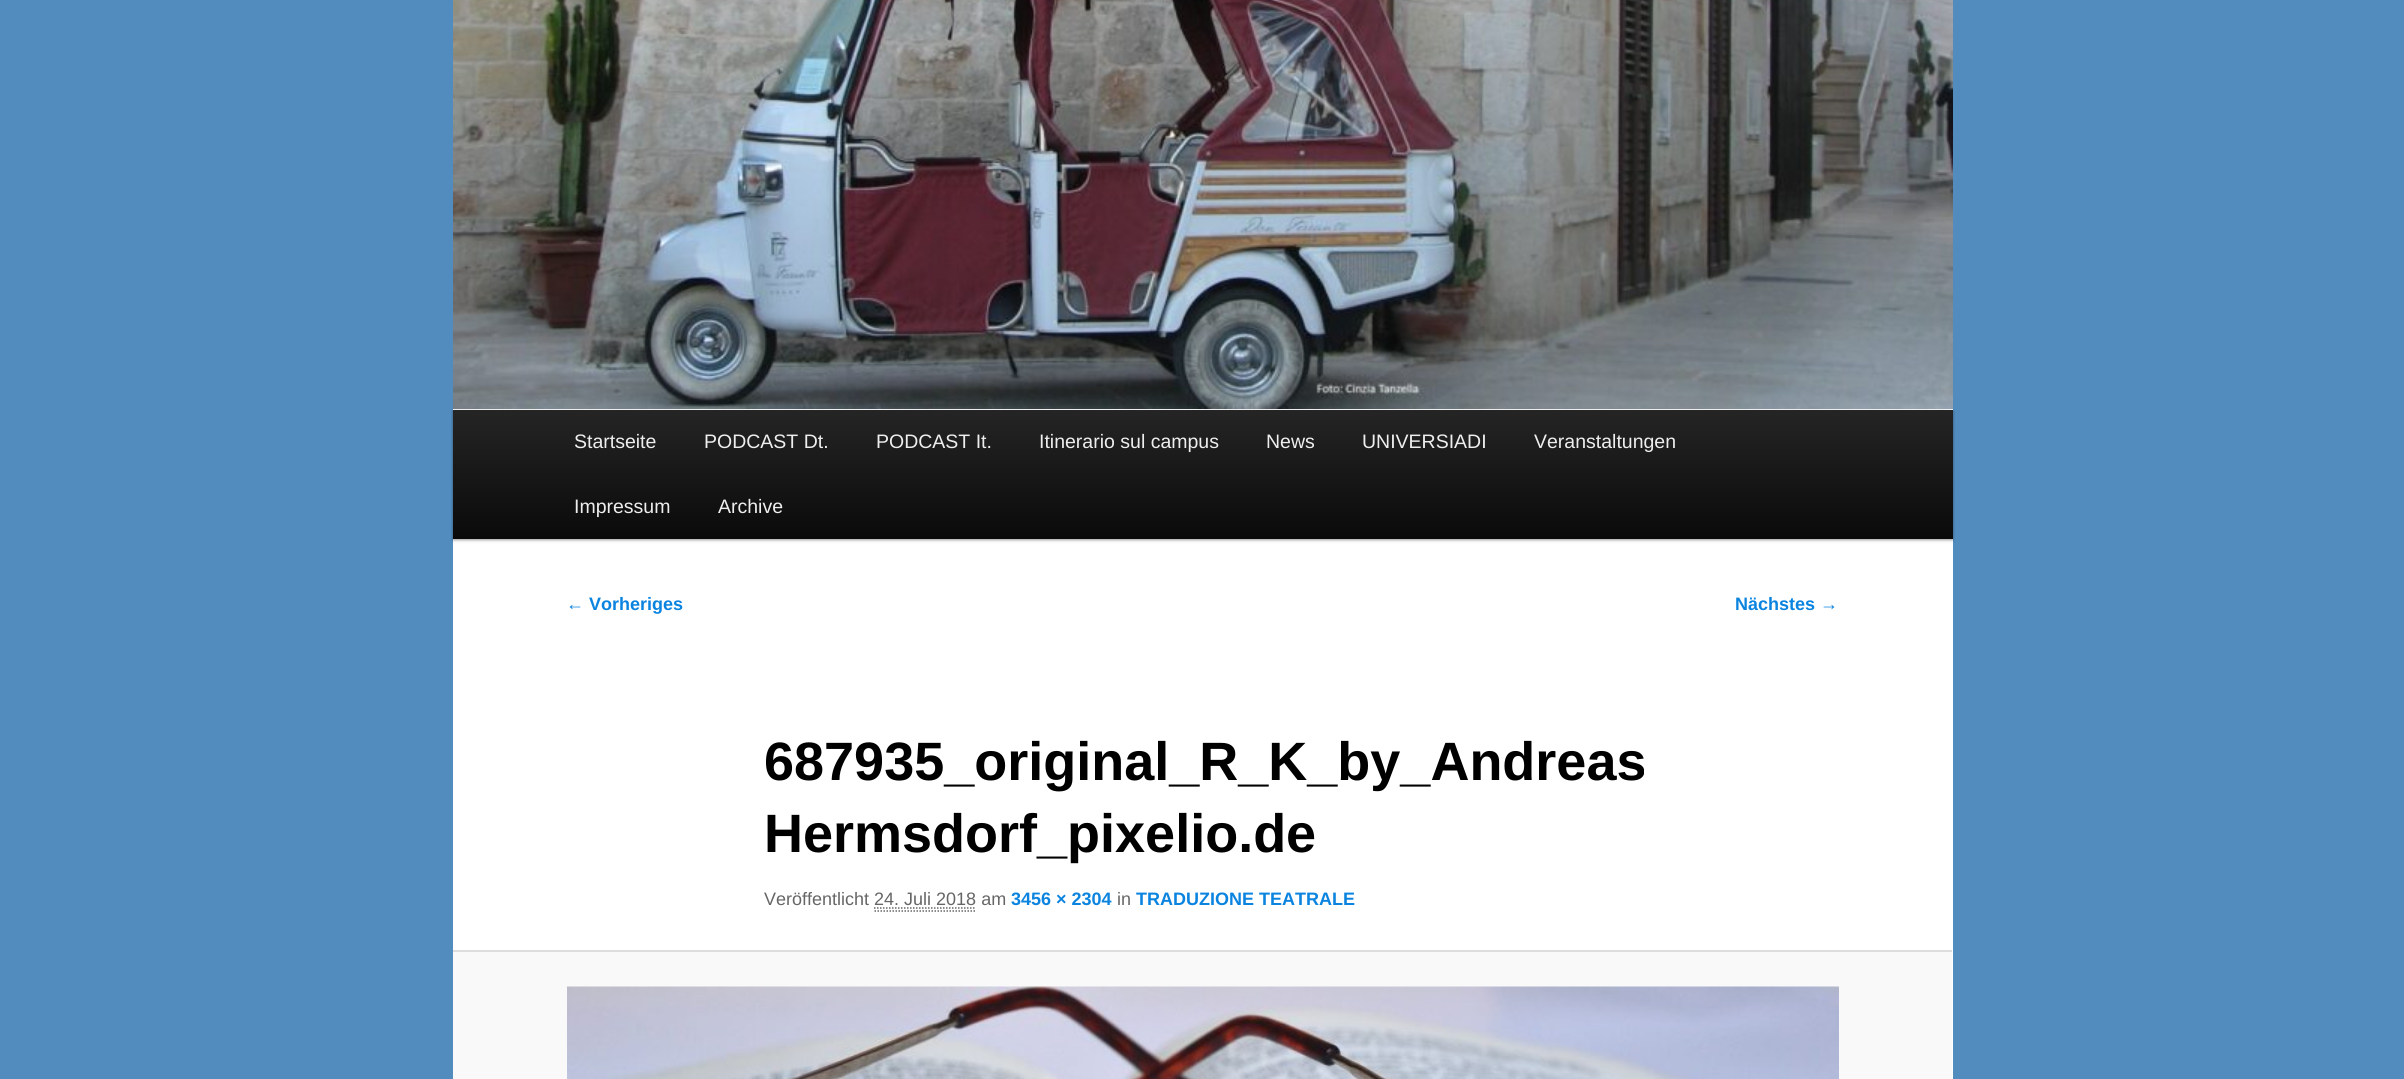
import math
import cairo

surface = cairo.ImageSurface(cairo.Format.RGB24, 2404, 1079)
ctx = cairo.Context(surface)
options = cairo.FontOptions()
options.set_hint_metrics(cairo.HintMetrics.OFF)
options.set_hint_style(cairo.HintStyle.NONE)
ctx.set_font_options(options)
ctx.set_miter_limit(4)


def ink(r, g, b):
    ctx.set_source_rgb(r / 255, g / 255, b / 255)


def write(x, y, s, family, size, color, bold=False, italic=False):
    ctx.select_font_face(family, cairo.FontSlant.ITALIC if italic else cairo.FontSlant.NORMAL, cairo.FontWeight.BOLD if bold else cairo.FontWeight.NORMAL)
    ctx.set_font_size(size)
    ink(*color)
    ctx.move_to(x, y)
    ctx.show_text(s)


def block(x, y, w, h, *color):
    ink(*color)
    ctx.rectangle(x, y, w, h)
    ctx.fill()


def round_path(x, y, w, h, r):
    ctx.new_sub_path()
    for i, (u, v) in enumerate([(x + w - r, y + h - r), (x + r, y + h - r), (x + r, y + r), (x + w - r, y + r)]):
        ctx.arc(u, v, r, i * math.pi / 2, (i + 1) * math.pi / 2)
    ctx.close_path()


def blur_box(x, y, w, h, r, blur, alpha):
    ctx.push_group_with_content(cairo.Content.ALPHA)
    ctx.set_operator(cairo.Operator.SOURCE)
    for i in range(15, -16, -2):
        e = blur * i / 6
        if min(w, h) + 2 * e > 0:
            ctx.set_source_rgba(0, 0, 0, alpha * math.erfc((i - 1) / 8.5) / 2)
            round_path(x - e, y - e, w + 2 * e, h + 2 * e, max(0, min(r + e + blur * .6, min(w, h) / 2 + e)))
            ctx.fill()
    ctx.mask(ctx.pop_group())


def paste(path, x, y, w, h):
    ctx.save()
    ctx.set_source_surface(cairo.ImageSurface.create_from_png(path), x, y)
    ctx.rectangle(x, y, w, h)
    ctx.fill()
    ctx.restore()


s1 = dict(family="Liberation Sans", size=19.5, color=(238, 238, 238))
s2 = dict(family="Liberation Sans", size=18, color=(11, 132, 224), bold=True)
s3 = dict(family="Liberation Sans", size=54, color=(0, 0, 0), bold=True)
s4 = dict(family="Liberation Sans", size=18, color=(102, 102, 102))

ink(82, 140, 191)
ctx.paint()
block(453, 409, 1500, 670, 255, 255, 255)
ink(0, 0, 0)
blur_box(453, 411, 1500, 129, 0, 1.5, 0.4)
paste("pic1.png", 453, 0, 1500, 409)
gradient = cairo.LinearGradient(1203, 409, 1203, 539)
gradient.add_color_stop_rgba(0, 0.145, 0.145, 0.145, 1)
gradient.add_color_stop_rgba(1, 0.039, 0.039, 0.039, 1)
ctx.set_source(gradient)
ctx.rectangle(453, 410, 1500, 129)
ctx.fill()
write(574, 448, "Startseite", **s1)
write(704, 448, "PODCAST Dt.", **s1)
write(876, 448, "PODCAST It.", **s1)
write(1039, 448, "Itinerario sul campus", **s1)
write(1266, 448, "News", **s1)
write(1362, 448, "UNIVERSIADI", **s1)
write(1534, 448, "Veranstaltungen", **s1)
write(574, 513, "Impressum", **s1)
write(718, 513, "Archive", **s1)
write(566, 610, "← Vorheriges", **s2)
write(1735, 610, "Nächstes →", **s2)
write(764, 780, "687935_original_R_K_by_Andreas", **s3)
write(764, 852, "Hermsdorf_pixelio.de", **s3)
write(764, 905, "Veröffentlicht 24. Juli 2018 am", **s4)
write(1011, 905, "3456 × 2304", **s2)
write(1117, 905, "in", **s4)
write(1136, 905, "TRADUZIONE TEATRALE", **s2)
ctx.new_path()
ctx.move_to(874, 908)
ctx.line_to(976, 908)
ink(102, 102, 102)
ctx.set_line_width(1.5)
ctx.set_dash([1.5, 1.5])
ctx.stroke()
ctx.new_path()
ctx.move_to(874.5, 911)
ctx.line_to(976.5, 911)
ctx.stroke()
block(453, 952, 1499, 127, 249, 249, 249)
block(453, 950, 1499, 2, 221, 221, 221)
paste("pic2.png", 567, 986, 1272, 93)
surface.write_to_png("screenshot.png")
